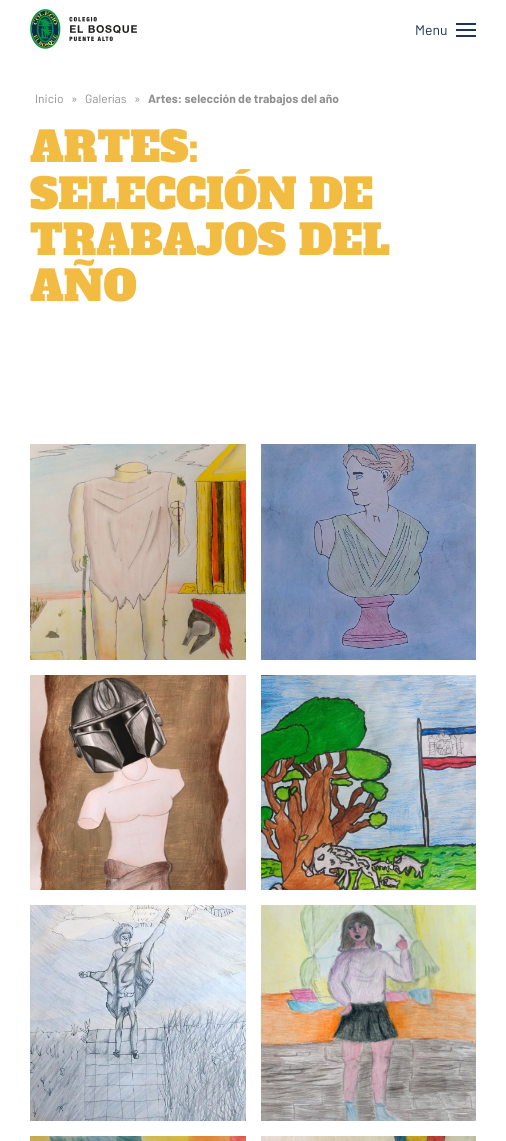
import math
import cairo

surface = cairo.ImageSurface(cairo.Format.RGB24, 506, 1141)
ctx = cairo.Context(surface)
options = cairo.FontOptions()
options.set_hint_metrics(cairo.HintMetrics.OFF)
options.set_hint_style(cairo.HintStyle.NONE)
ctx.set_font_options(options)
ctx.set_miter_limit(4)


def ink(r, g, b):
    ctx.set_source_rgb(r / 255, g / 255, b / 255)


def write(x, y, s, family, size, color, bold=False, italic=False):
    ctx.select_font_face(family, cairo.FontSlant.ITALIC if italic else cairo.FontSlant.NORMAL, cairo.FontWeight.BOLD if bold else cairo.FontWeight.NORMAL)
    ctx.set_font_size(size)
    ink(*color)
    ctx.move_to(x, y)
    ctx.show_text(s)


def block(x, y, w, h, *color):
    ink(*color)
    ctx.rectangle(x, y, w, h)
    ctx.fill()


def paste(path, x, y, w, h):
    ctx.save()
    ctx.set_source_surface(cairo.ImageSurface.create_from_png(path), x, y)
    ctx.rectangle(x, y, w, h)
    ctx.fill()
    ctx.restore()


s1 = dict(family="Barlow", size=14, color=(31, 52, 89))
s2 = dict(family="Barlow", size=12, color=(142, 143, 142))
s3 = dict(family="Barlow", size=12, color=(142, 143, 142), bold=True)
s4 = dict(family="Alfa Slab One", size=42, color=(242, 187, 66))

ink(255, 255, 255)
ctx.paint()
paste("pic1.png", 30, 9, 107, 40)
write(415, 35, "Menu", **s1)
block(456, 23, 20, 2, 31, 52, 89)
block(456, 29, 20, 2, 31, 52, 89)
block(456, 35, 20, 2, 31, 52, 89)
write(35, 103, "Inicio", **s2)
write(71, 103, "»", **s2)
write(85, 103, "Galerías", **s2)
write(134, 103, "»", **s2)
write(148, 103, "Artes: selección de trabajos del año", **s3)
write(30, 162, "ARTES:", **s4)
write(30, 209, "SELECCIÓN DE", **s4)
write(30, 255, "TRABAJOS DEL", **s4)
write(30, 301, "AÑO", **s4)
paste("pic2.png", 30, 444, 216, 216)
paste("pic3.png", 261, 444, 215, 216)
paste("pic4.png", 30, 675, 216, 215)
paste("pic5.png", 261, 675, 215, 215)
paste("pic6.png", 30, 905, 216, 216)
paste("pic7.png", 261, 905, 215, 216)
paste("pic8.png", 30, 1136, 216, 5)
paste("pic9.png", 261, 1136, 215, 5)
surface.write_to_png("screenshot.png")
